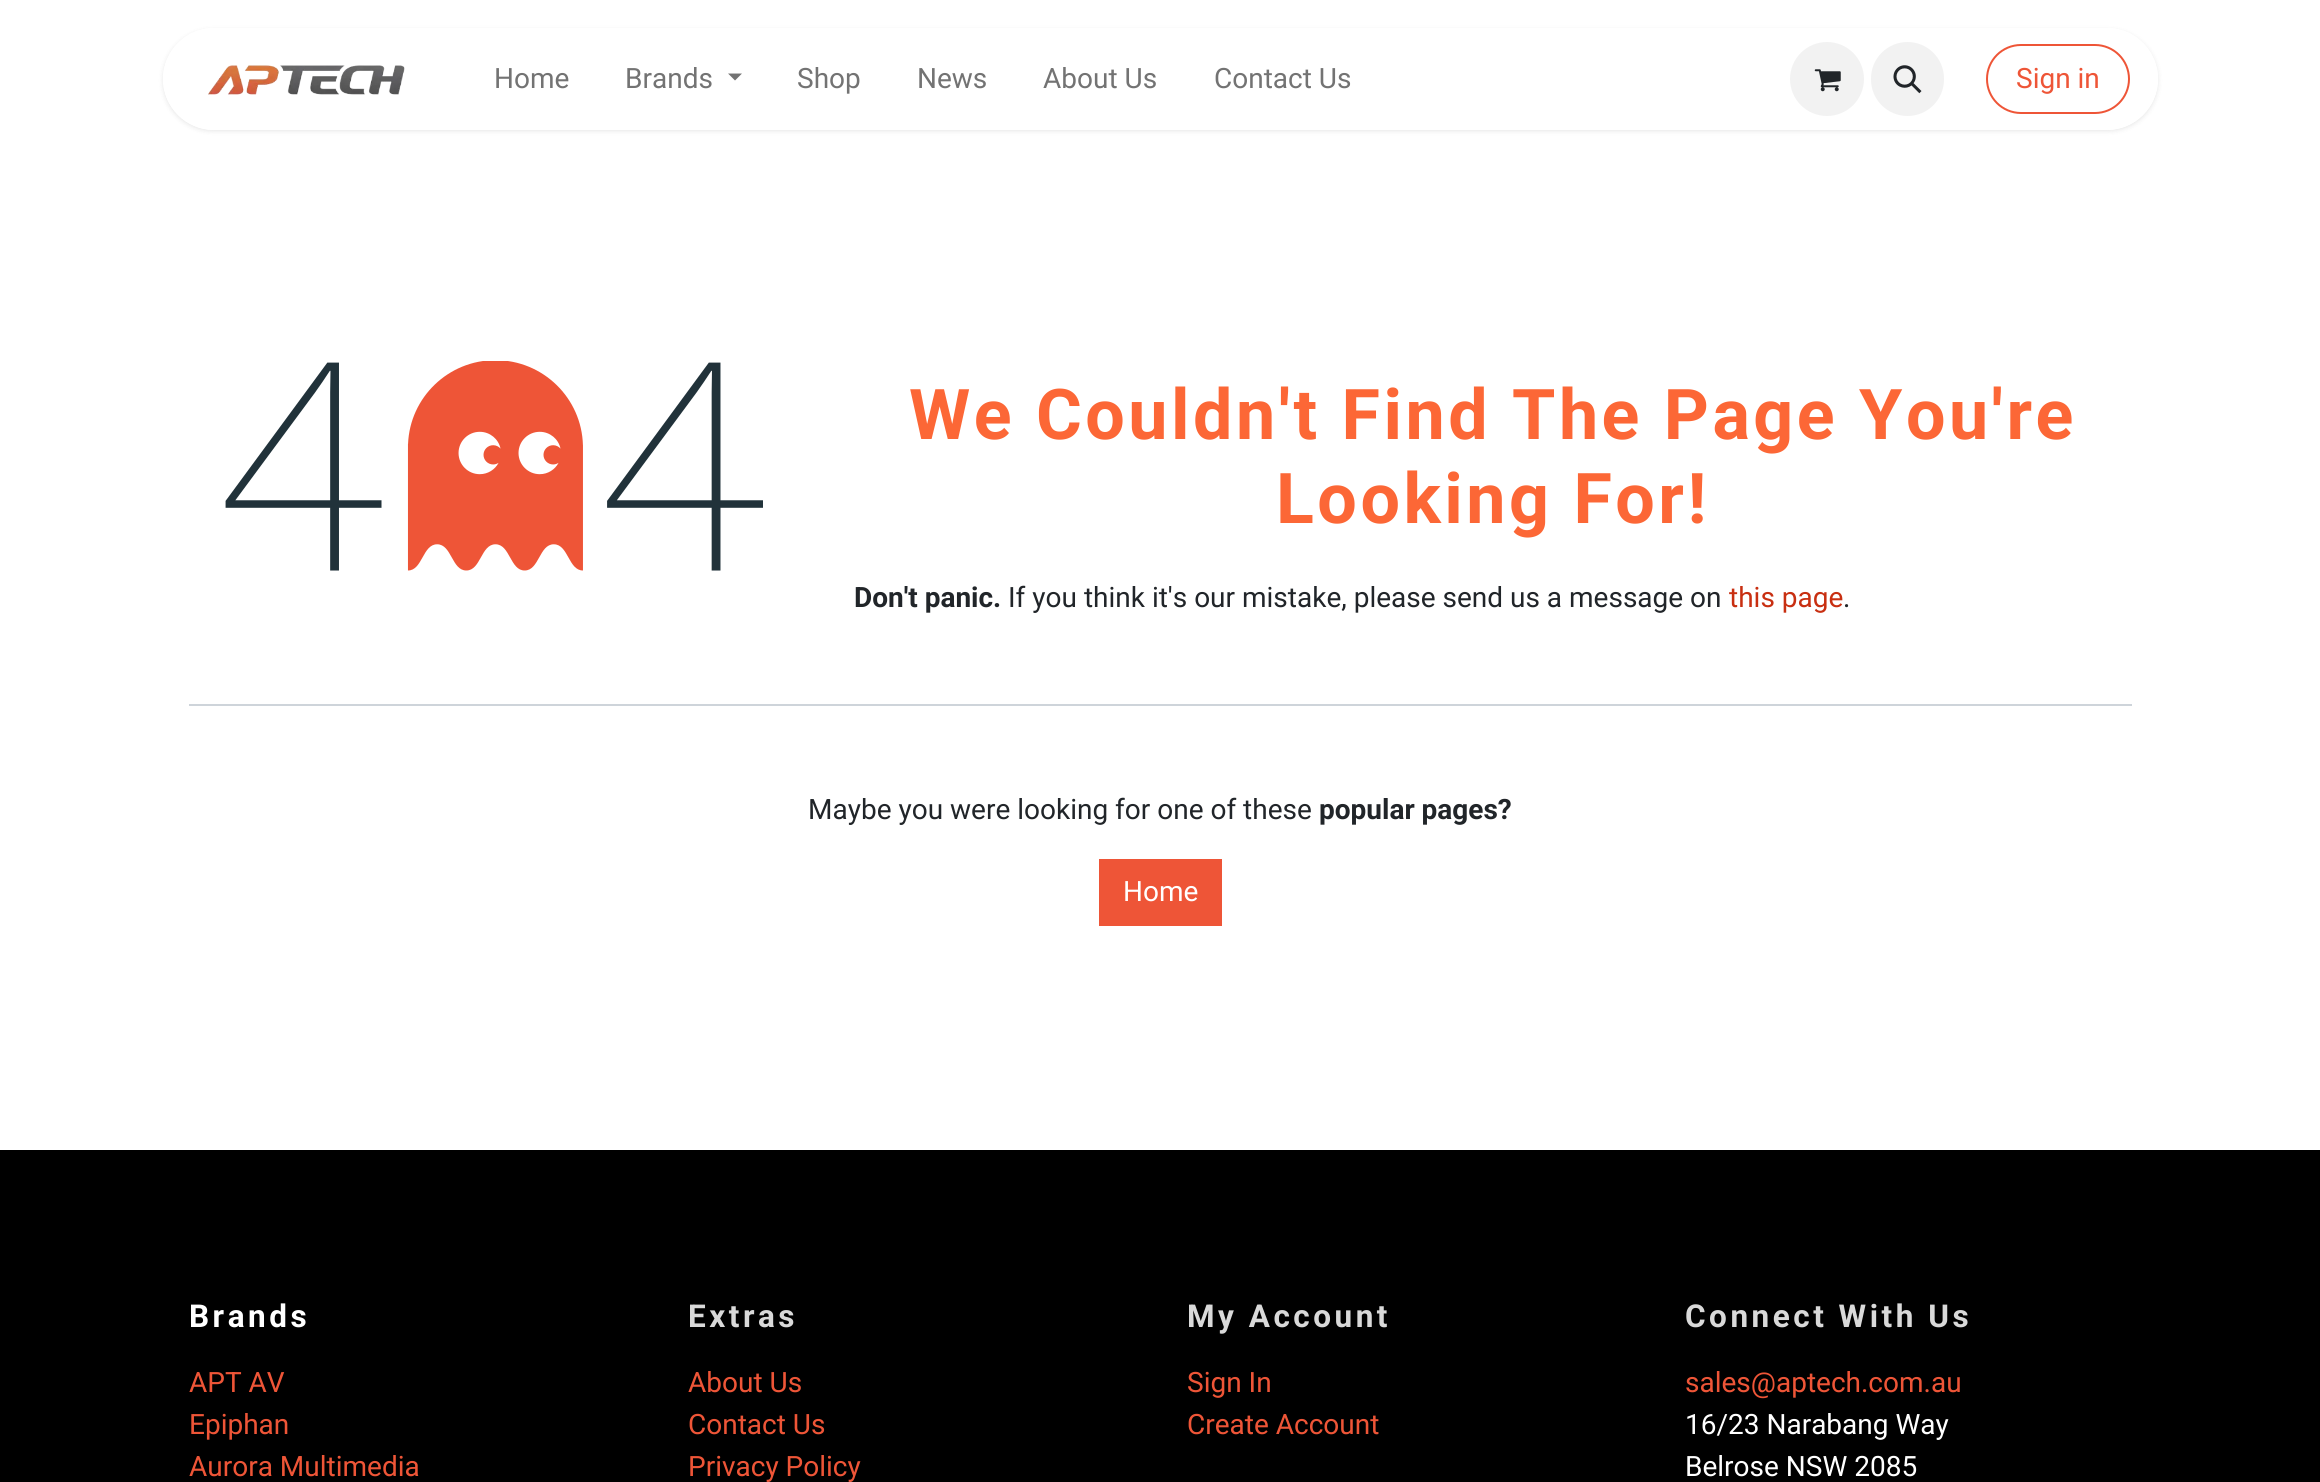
import math
import cairo

surface = cairo.ImageSurface(cairo.Format.RGB24, 2320, 1482)
ctx = cairo.Context(surface)
options = cairo.FontOptions()
options.set_hint_metrics(cairo.HintMetrics.OFF)
options.set_hint_style(cairo.HintStyle.NONE)
ctx.set_font_options(options)
ctx.set_miter_limit(4)


def ink(r, g, b):
    ctx.set_source_rgb(r / 255, g / 255, b / 255)


def write(x, y, s, family, size, color, bold=False, italic=False):
    ctx.select_font_face(family, cairo.FontSlant.ITALIC if italic else cairo.FontSlant.NORMAL, cairo.FontWeight.BOLD if bold else cairo.FontWeight.NORMAL)
    ctx.set_font_size(size)
    ink(*color)
    ctx.move_to(x, y)
    ctx.show_text(s)


def write_spaced(x, y, s, letter, word):
    ctx.move_to(x, y)
    for ch in s:
        ctx.show_text(ch)
        ctx.rel_move_to(letter + word * (ch == ' '), 0)


def block(x, y, w, h, *color):
    ink(*color)
    ctx.rectangle(x, y, w, h)
    ctx.fill()


def round_path(x, y, w, h, r):
    ctx.new_sub_path()
    for i, (u, v) in enumerate([(x + w - r, y + h - r), (x + r, y + h - r), (x + r, y + r), (x + w - r, y + r)]):
        ctx.arc(u, v, r, i * math.pi / 2, (i + 1) * math.pi / 2)
    ctx.close_path()


def blur_box(x, y, w, h, r, blur, alpha):
    ctx.push_group_with_content(cairo.Content.ALPHA)
    ctx.set_operator(cairo.Operator.SOURCE)
    for i in range(15, -16, -2):
        e = blur * i / 6
        if min(w, h) + 2 * e > 0:
            ctx.set_source_rgba(0, 0, 0, alpha * math.erfc((i - 1) / 8.5) / 2)
            round_path(x - e, y - e, w + 2 * e, h + 2 * e, max(0, min(r + e + blur * .6, min(w, h) / 2 + e)))
            ctx.fill()
    ctx.mask(ctx.pop_group())


def paste(path, x, y, w, h):
    ctx.save()
    ctx.set_source_surface(cairo.ImageSurface.create_from_png(path), x, y)
    ctx.rectangle(x, y, w, h)
    ctx.fill()
    ctx.restore()


s1 = dict(family="Roboto", size=28, color=(115, 115, 115))
s2 = dict(family="Roboto", size=28, color=(238, 85, 55))
s3 = dict(family="Roboto", size=28, color=(33, 37, 41), bold=True)
s4 = dict(family="Roboto", size=28, color=(33, 37, 41))
s5 = dict(family="Roboto", size=28, color=(200, 47, 17))
s6 = dict(family="Roboto", size=28, color=(255, 255, 255))

ink(255, 255, 255)
ctx.paint()
ctx.save()
ctx.set_fill_rule(cairo.FillRule.EVEN_ODD)
ctx.new_path()
ctx.move_to(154, 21)
ctx.line_to(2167, 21)
ctx.line_to(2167, 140)
ctx.line_to(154, 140)
ctx.close_path()
ctx.move_to(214, 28)
ctx.line_to(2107, 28)
ctx.curve_to(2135, 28, 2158, 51, 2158, 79)
ctx.curve_to(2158, 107, 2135, 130, 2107, 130)
ctx.line_to(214, 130)
ctx.curve_to(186, 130, 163, 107, 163, 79)
ctx.curve_to(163, 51, 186, 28, 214, 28)
ctx.close_path()
ctx.clip()
ink(0, 0, 0)
blur_box(163, 30, 1995, 101, 50.5, 2.5, 0.1)
ctx.restore()
ctx.set_source_rgba(1, 1, 1, 0.85)
round_path(163, 28, 1995, 102, 51)
ctx.fill()
paste("pic1.png", 208, 65, 197, 30)
write(494, 88, "Home", **s1)
write(625, 88, "Brands", **s1)
ctx.new_path()
ctx.move_to(728, 73.5)
ctx.line_to(742, 73.5)
ctx.line_to(735, 80.5)
ctx.close_path()
ctx.fill()
write(797, 88, "Shop", **s1)
write(917, 88, "News", **s1)
write(1043, 88, "About Us", **s1)
write(1214, 88, "Contact Us", **s1)
ink(242, 242, 242)
ctx.new_path()
ctx.arc(1827, 79, 37, 0, 2 * math.pi)
ctx.fill()
paste("pic2.png", 1814, 69, 27, 23)
round_path(1871, 42, 73, 74, 36.5)
ctx.fill()
paste("pic3.png", 1893, 65, 29, 29)
round_path(1987, 45, 142, 68, 34)
ink(238, 85, 55)
ctx.stroke()
write(2016, 88, "Sign in", **s2)
paste("pic4.png", 225, 361, 538, 210)
ctx.select_font_face("Roboto", cairo.FontSlant.NORMAL, cairo.FontWeight.BOLD)
ctx.set_font_size(70)
ink(252, 103, 54)
write_spaced(909, 439, "We Couldn't Find The Page You're", 3.5, 0)
write_spaced(1276, 523, "Looking For!", 3.5, 0)
write(854, 607, "Don't panic.", **s3)
write(1008, 607, "If you think it's our mistake, please send us a message on", **s4)
write(1729, 607, "this page", **s5)
write(1843, 607, ".", **s4)
block(189, 704, 1943, 2, 206, 212, 218)
write(808, 819, "Maybe you were looking for one of these", **s4)
write(1319, 819, "popular pages?", **s3)
block(1099, 859, 123, 67, 238, 85, 55)
write(1123, 901, "Home", **s6)
block(0, 1150, 2320, 332, 0, 0, 0)
ctx.select_font_face("Roboto", cairo.FontSlant.NORMAL, cairo.FontWeight.BOLD)
ctx.set_font_size(31.5)
ink(255, 255, 255)
write_spaced(189, 1327, "Brands", 3.5, 0)
write(189, 1392, "APT AV", **s2)
write(189, 1434, "Epiphan", **s2)
write(189, 1476, "Aurora Multimedia", **s2)
ctx.select_font_face("Roboto", cairo.FontSlant.NORMAL, cairo.FontWeight.BOLD)
ctx.set_font_size(31.5)
ink(217, 217, 217)
write_spaced(688, 1327, "Extras", 3.5, 0)
write(688, 1392, "About Us", **s2)
write(688, 1434, "Contact Us", **s2)
write(688, 1476, "Privacy Policy", **s2)
ctx.select_font_face("Roboto", cairo.FontSlant.NORMAL, cairo.FontWeight.BOLD)
ctx.set_font_size(31.5)
ink(217, 217, 217)
write_spaced(1187, 1327, "My Account", 3.5, 0)
write(1187, 1392, "Sign In", **s2)
write(1187, 1434, "Create Account", **s2)
ctx.select_font_face("Roboto", cairo.FontSlant.NORMAL, cairo.FontWeight.BOLD)
ctx.set_font_size(31.5)
ink(217, 217, 217)
write_spaced(1685, 1327, "Connect With Us", 3.5, 0)
write(1685, 1392, "sales@aptech.com.au", **s2)
write(1685, 1434, "16/23 Narabang Way", **s6)
write(1685, 1476, "Belrose NSW 2085", **s6)
surface.write_to_png("screenshot.png")
